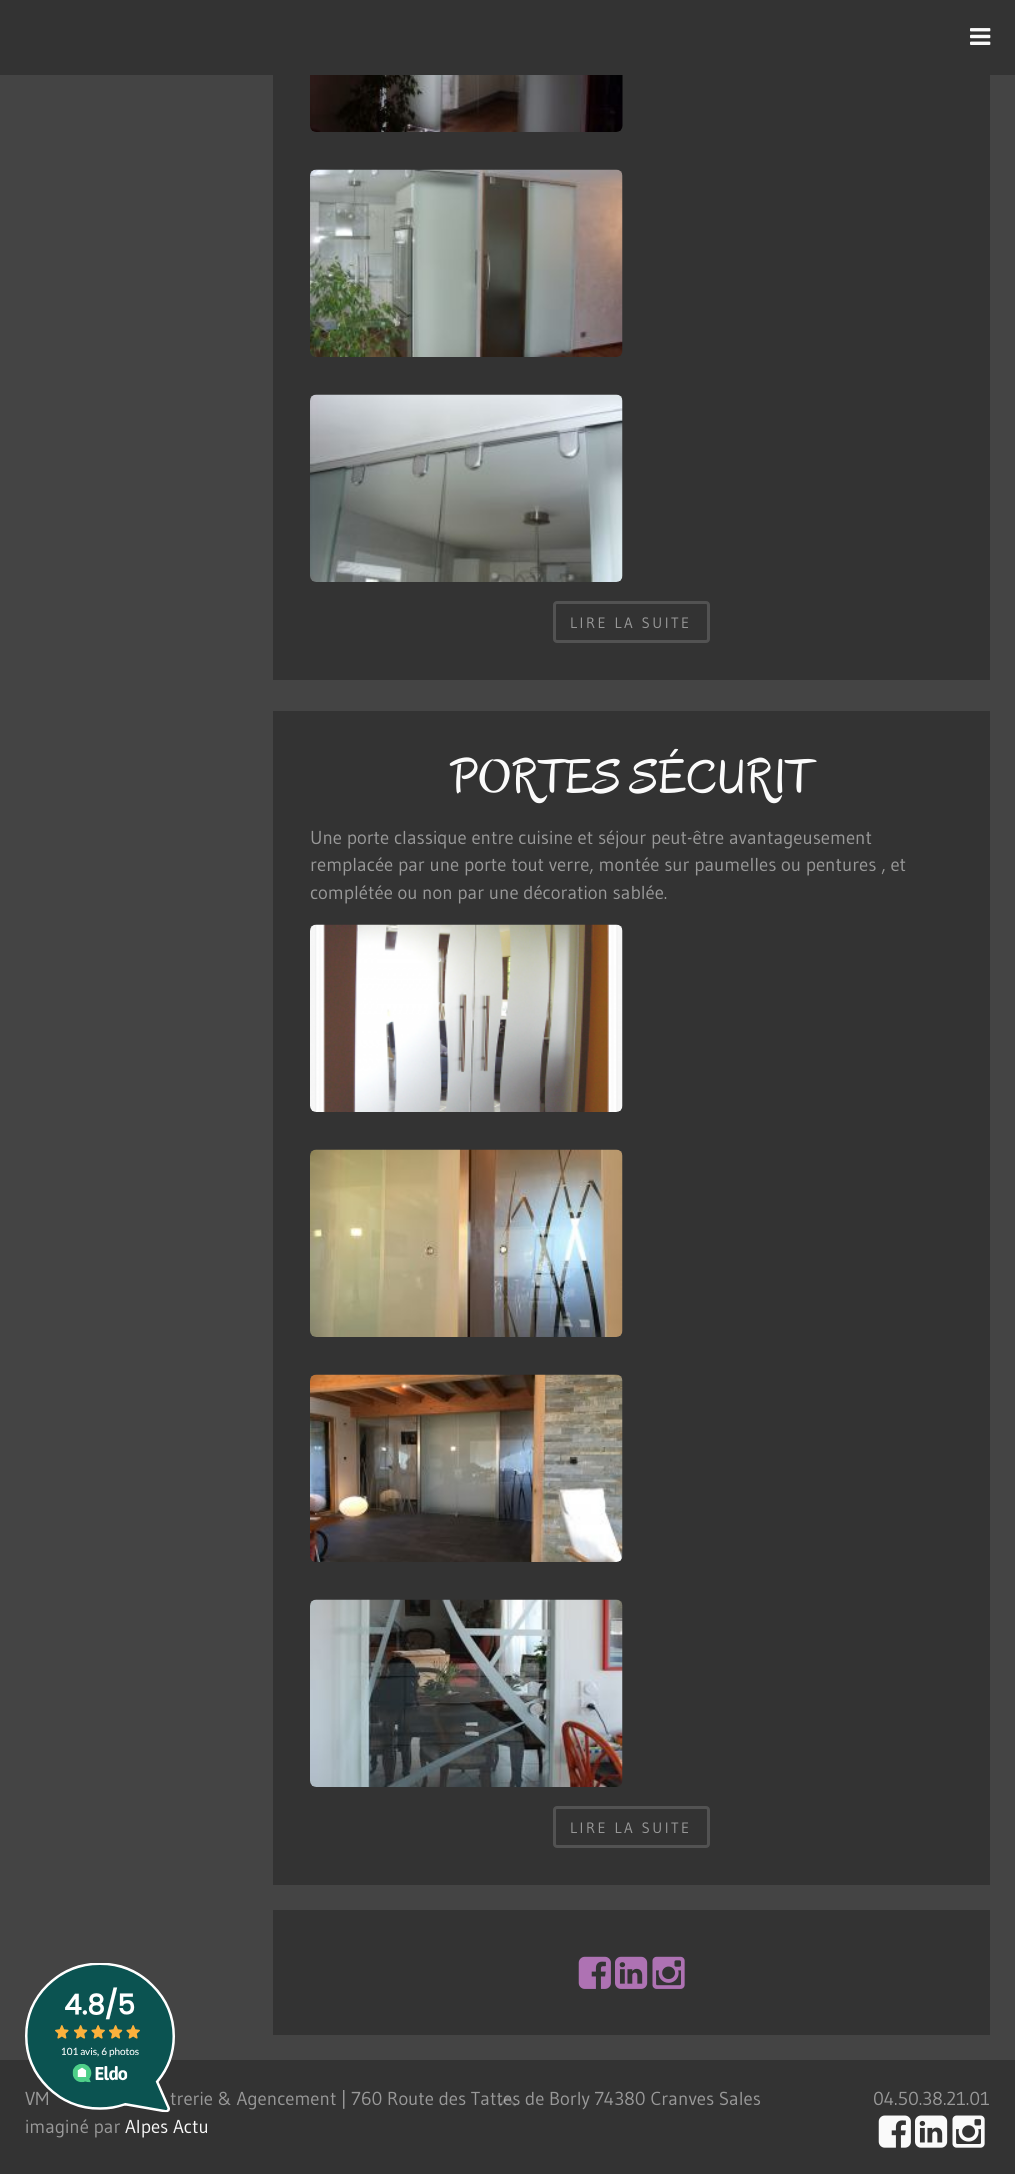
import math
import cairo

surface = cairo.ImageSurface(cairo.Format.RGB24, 1015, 2174)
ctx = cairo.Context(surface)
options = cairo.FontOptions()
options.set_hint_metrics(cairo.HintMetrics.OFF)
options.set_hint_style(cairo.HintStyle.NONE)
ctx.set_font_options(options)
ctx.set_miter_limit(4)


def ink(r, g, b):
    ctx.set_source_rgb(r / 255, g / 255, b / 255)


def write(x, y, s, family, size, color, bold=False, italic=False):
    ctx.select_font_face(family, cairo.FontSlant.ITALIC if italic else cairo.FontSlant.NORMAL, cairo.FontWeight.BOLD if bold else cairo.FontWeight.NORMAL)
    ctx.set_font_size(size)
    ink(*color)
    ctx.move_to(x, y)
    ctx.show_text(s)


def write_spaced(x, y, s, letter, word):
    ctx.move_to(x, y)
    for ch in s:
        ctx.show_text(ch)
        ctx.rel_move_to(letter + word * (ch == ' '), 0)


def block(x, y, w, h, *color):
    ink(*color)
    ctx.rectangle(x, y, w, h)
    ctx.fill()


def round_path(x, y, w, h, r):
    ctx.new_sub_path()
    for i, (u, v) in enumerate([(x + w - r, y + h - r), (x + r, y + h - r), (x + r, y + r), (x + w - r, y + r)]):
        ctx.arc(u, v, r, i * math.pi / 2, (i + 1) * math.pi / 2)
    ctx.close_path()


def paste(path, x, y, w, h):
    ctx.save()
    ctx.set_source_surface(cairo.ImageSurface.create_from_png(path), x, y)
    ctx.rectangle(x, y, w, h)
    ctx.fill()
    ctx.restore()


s1 = dict(family="Oregano", size=48.75, color=(250, 250, 250))
s2 = dict(family="Gudea", size=18.75, color=(153, 153, 153))
s3 = dict(family="Gudea", size=18.75, color=(250, 250, 250))

ink(51, 51, 51)
ctx.paint()
paste("pic1.png", 970, 28, 21, 17)
block(0, 75, 1015, 1985, 68, 68, 68)
block(273, 75, 717, 605, 51, 51, 51)
paste("pic2.png", 310, 75, 313, 57)
paste("pic3.png", 310, 169, 313, 188)
paste("pic4.png", 310, 394, 313, 188)
round_path(554.5, 602.5, 154, 39, 2.5)
ink(82, 82, 82)
ctx.set_line_width(3)
ctx.stroke()
ctx.select_font_face("Gudea")
ctx.set_font_size(15)
ink(153, 153, 153)
write_spaced(570, 628, "LIRE LA SUITE", 2.5, 0)
block(273, 711, 717, 1174, 51, 51, 51)
write(450, 793, "PORTES SÉCURIT", **s1)
write(310, 844, "Une porte classique entre cuisine et séjour peut-être avantageusement", **s2)
write(310, 871, "remplacée par une porte tout verre, montée sur paumelles ou pentures , et", **s2)
write(310, 899, "complétée ou non par une décoration sablée.", **s2)
paste("pic5.png", 310, 924, 313, 188)
paste("pic6.png", 310, 1149, 313, 188)
paste("pic7.png", 310, 1374, 313, 188)
paste("pic8.png", 310, 1599, 313, 188)
round_path(554.5, 1807.5, 154, 39, 2.5)
ink(82, 82, 82)
ctx.stroke()
ctx.set_font_size(15)
ink(153, 153, 153)
write_spaced(570, 1833, "LIRE LA SUITE", 2.5, 0)
block(273, 1910, 717, 125, 51, 51, 51)
paste("pic9.png", 578, 1956, 33, 33)
paste("pic10.png", 615, 1956, 33, 33)
paste("pic11.png", 652, 1956, 33, 33)
write(25, 2105, "VM", **s2)
write(170, 2105, "trerie & Agencement | 760 Route des Tattes de Borly 74380 Cranves Sales", **s2)
write(25, 2133, "imaginé par", **s2)
write(125, 2133, "Alpes Actu", **s3)
paste("pic12.png", 25, 1963, 150, 150)
write(873, 2105, "04.50.38.21.01", **s2)
paste("pic13.png", 878, 2115, 33, 33)
paste("pic14.png", 915, 2115, 33, 33)
paste("pic15.png", 952, 2115, 33, 33)
paste("pic16.png", 499, 2096, 17, 11)
surface.write_to_png("screenshot.png")
